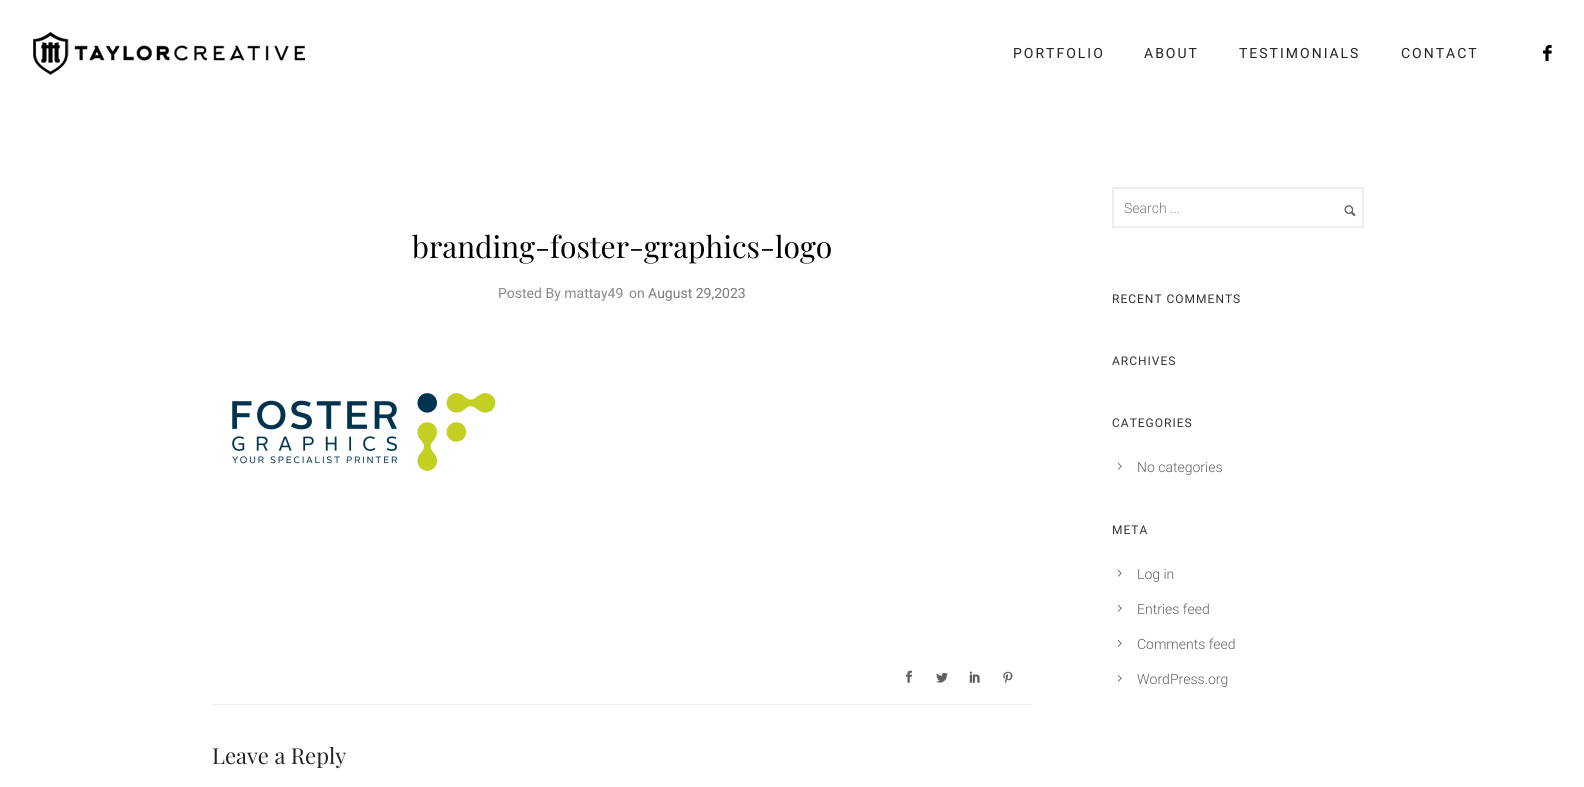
import math
import cairo

surface = cairo.ImageSurface(cairo.Format.RGB24, 1584, 787)
ctx = cairo.Context(surface)
options = cairo.FontOptions()
options.set_hint_metrics(cairo.HintMetrics.OFF)
options.set_hint_style(cairo.HintStyle.NONE)
ctx.set_font_options(options)
ctx.set_miter_limit(4)


def ink(r, g, b):
    ctx.set_source_rgb(r / 255, g / 255, b / 255)


def write(x, y, s, family, size, color, bold=False, italic=False):
    ctx.select_font_face(family, cairo.FontSlant.ITALIC if italic else cairo.FontSlant.NORMAL, cairo.FontWeight.BOLD if bold else cairo.FontWeight.NORMAL)
    ctx.set_font_size(size)
    ink(*color)
    ctx.move_to(x, y)
    ctx.show_text(s)


def write_spaced(x, y, s, letter, word):
    ctx.move_to(x, y)
    for ch in s:
        ctx.show_text(ch)
        ctx.rel_move_to(letter + word * (ch == ' '), 0)


def block(x, y, w, h, *color):
    ink(*color)
    ctx.rectangle(x, y, w, h)
    ctx.fill()


def paste(path, x, y, w, h):
    ctx.save()
    ctx.set_source_surface(cairo.ImageSurface.create_from_png(path), x, y)
    ctx.rectangle(x, y, w, h)
    ctx.fill()
    ctx.restore()


s1 = dict(family="Playfair Display", size=30, color=(0, 0, 0))
s2 = dict(family="Roboto", size=14, color=(136, 136, 136))
s3 = dict(family="Roboto", size=14, color=(122, 122, 122))
s4 = dict(family="Playfair Display", size=22, color=(34, 34, 34))
s5 = dict(family="Roboto Light", size=14, color=(122, 122, 122))
s6 = dict(family="Roboto Light", size=14, color=(96, 96, 96))

ink(255, 255, 255)
ctx.paint()
paste("pic1.png", 33, 32, 272, 43)
ctx.select_font_face("Roboto")
ctx.set_font_size(14)
ink(34, 34, 34)
write_spaced(1013, 58, "PORTFOLIO", 2, 0)
write_spaced(1144, 58, "ABOUT", 2, 0)
write_spaced(1239, 58, "TESTIMONIALS", 2, 0)
write_spaced(1401, 58, "CONTACT", 2, 0)
paste("pic2.png", 1543, 45, 9, 16)
write(412, 258, "branding-foster-graphics-logo", **s1)
write(498, 298, "Posted By mattay49", **s2)
write(629, 298, "on", **s2)
write(648, 298, "August 29,2023", **s3)
paste("pic3.png", 232, 393, 264, 78)
block(212, 704, 820, 1, 238, 238, 238)
paste("pic4.png", 906, 670, 6, 13)
paste("pic5.png", 936, 672, 12, 11)
paste("pic6.png", 969, 671, 11, 12)
paste("pic7.png", 1003, 671, 10, 13)
write(212, 764, "Leave a Reply", **s4)
ctx.rectangle(1113, 188, 250, 39)
ink(238, 238, 238)
ctx.stroke()
write(1124, 213, "Search ...", **s5)
paste("pic8.png", 1344, 205, 12, 12)
ctx.select_font_face("Roboto")
ctx.set_font_size(12)
ink(51, 51, 51)
write_spaced(1112, 303, "RECENT COMMENTS", 1, 0)
write_spaced(1112, 365, "ARCHIVES", 1, 0)
write_spaced(1112, 427, "CATEGORIES", 1, 0)
paste("pic9.png", 1118, 463, 4, 7)
write(1137, 472, "No categories", **s6)
ctx.select_font_face("Roboto")
ctx.set_font_size(12)
ink(51, 51, 51)
write_spaced(1112, 534, "META", 1, 0)
paste("pic9.png", 1118, 570, 4, 7)
write(1137, 579, "Log in", **s6)
paste("pic9.png", 1118, 605, 4, 7)
write(1137, 614, "Entries feed", **s6)
paste("pic9.png", 1118, 640, 4, 7)
write(1137, 649, "Comments feed", **s6)
paste("pic9.png", 1118, 675, 4, 7)
write(1137, 684, "WordPress.org", **s6)
surface.write_to_png("screenshot.png")
